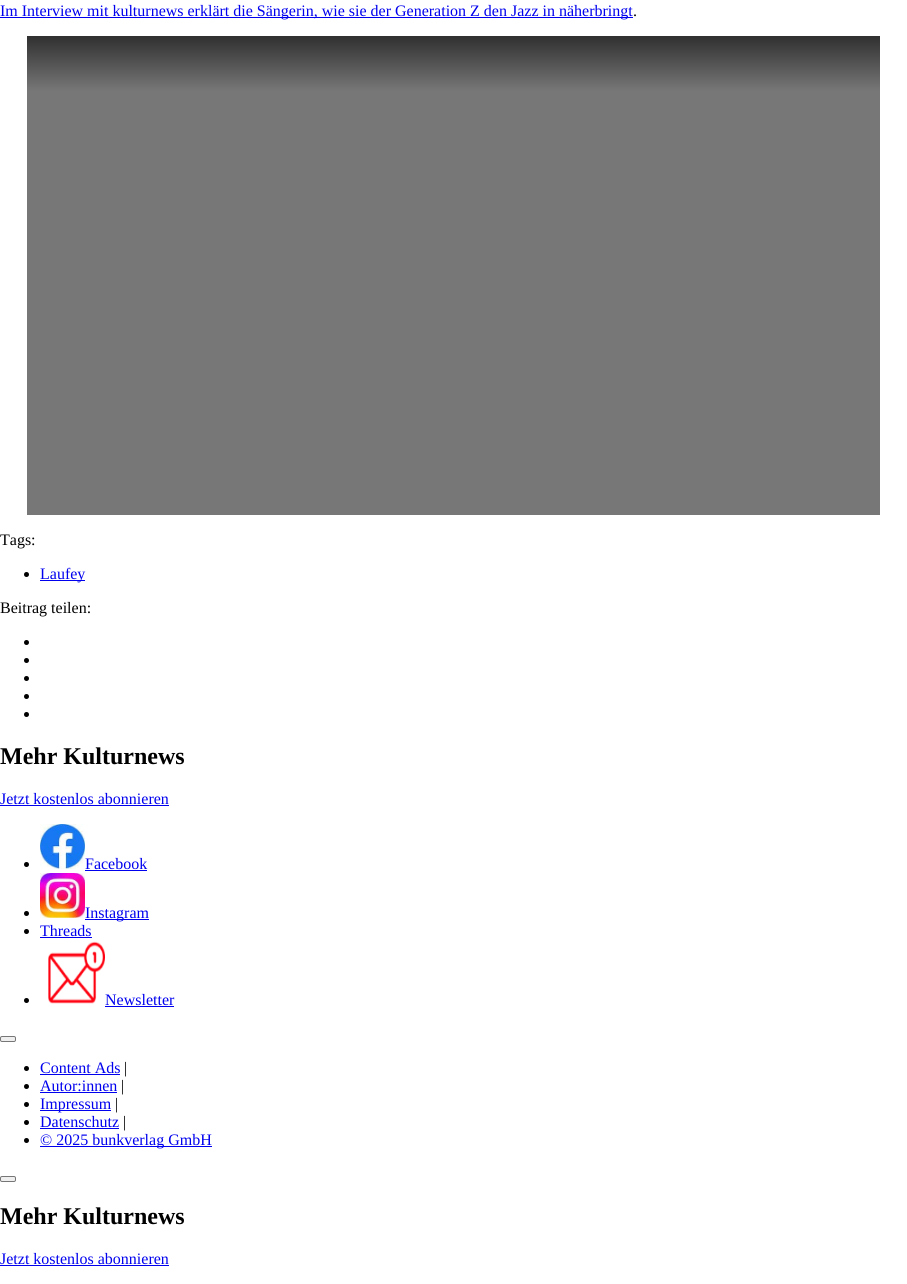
import math
import cairo

surface = cairo.ImageSurface(cairo.Format.RGB24, 907, 1284)
ctx = cairo.Context(surface)
options = cairo.FontOptions()
options.set_hint_metrics(cairo.HintMetrics.OFF)
options.set_hint_style(cairo.HintStyle.NONE)
ctx.set_font_options(options)
ctx.set_miter_limit(4)


def ink(r, g, b):
    ctx.set_source_rgb(r / 255, g / 255, b / 255)


def write(x, y, s, family, size, color, bold=False, italic=False):
    ctx.select_font_face(family, cairo.FontSlant.ITALIC if italic else cairo.FontSlant.NORMAL, cairo.FontWeight.BOLD if bold else cairo.FontWeight.NORMAL)
    ctx.set_font_size(size)
    ink(*color)
    ctx.move_to(x, y)
    ctx.show_text(s)


def block(x, y, w, h, *color):
    ink(*color)
    ctx.rectangle(x, y, w, h)
    ctx.fill()


def round_path(x, y, w, h, r):
    ctx.new_sub_path()
    for i, (u, v) in enumerate([(x + w - r, y + h - r), (x + r, y + h - r), (x + r, y + r), (x + w - r, y + r)]):
        ctx.arc(u, v, r, i * math.pi / 2, (i + 1) * math.pi / 2)
    ctx.close_path()


def paste(path, x, y, w, h):
    ctx.save()
    ctx.set_source_surface(cairo.ImageSurface.create_from_png(path), x, y)
    ctx.rectangle(x, y, w, h)
    ctx.fill()
    ctx.restore()


s1 = dict(family="Liberation Serif", size=16, color=(0, 0, 238))
s2 = dict(family="Liberation Serif", size=16, color=(0, 0, 0))
s3 = dict(family="Liberation Serif", size=24, color=(0, 0, 0), bold=True)

ink(255, 255, 255)
ctx.paint()
block(0, 17, 633, 1, 0, 0, 238)
write(0, 16, "Im Interview mit kulturnews erklärt die Sängerin, wie sie der Generation Z den Jazz in näherbringt", **s1)
write(633, 16, ".", **s2)
block(27, 91, 853, 424, 119, 119, 119)
gradient = cairo.LinearGradient(454, 36, 454, 91)
gradient.add_color_stop_rgba(0, 0.188, 0.188, 0.188, 1)
gradient.add_color_stop_rgba(1, 0.467, 0.467, 0.467, 1)
ctx.set_source(gradient)
ctx.rectangle(27, 36, 853, 55)
ctx.fill()
write(0, 545, "Tags:", **s2)
ctx.new_path()
ctx.arc(26.5, 574.5, 2.5, 0, 2 * math.pi)
ctx.fill()
block(40, 580, 45, 1, 0, 0, 238)
write(40, 579, "Laufey", **s1)
write(0, 613, "Beitrag teilen:", **s2)
ctx.new_path()
ctx.arc(26.5, 642.5, 2.5, 0, 2 * math.pi)
ctx.fill()
ctx.arc(26.5, 660.5, 2.5, 0, 2 * math.pi)
ctx.fill()
ctx.arc(26.5, 678.5, 2.5, 0, 2 * math.pi)
ctx.fill()
ctx.arc(26.5, 696.5, 2.5, 0, 2 * math.pi)
ctx.fill()
ctx.arc(26.5, 714.5, 2.5, 0, 2 * math.pi)
ctx.fill()
write(0, 764, "Mehr Kulturnews", **s3)
write(0, 804, "Jetzt kostenlos abonnieren", **s1)
block(0, 805, 169, 1, 0, 0, 238)
ink(0, 0, 0)
ctx.new_path()
ctx.arc(26.5, 864.5, 2.5, 0, 2 * math.pi)
ctx.fill()
paste("pic1.png", 40, 824, 45, 45)
write(85, 869, "Facebook", **s1)
block(85, 870, 62, 1, 0, 0, 238)
ink(0, 0, 0)
ctx.new_path()
ctx.arc(26.5, 913.5, 2.5, 0, 2 * math.pi)
ctx.fill()
paste("pic2.png", 40, 873, 45, 45)
block(85, 919, 64, 1, 0, 0, 238)
write(85, 918, "Instagram", **s1)
ink(0, 0, 0)
ctx.new_path()
ctx.arc(26.5, 931.5, 2.5, 0, 2 * math.pi)
ctx.fill()
write(40, 936, "Threads", **s1)
block(40, 937, 52, 1, 0, 0, 238)
ink(0, 0, 0)
ctx.new_path()
ctx.arc(26.5, 1000.5, 2.5, 0, 2 * math.pi)
ctx.fill()
paste("pic3.png", 48, 941, 57, 63)
write(105, 1005, "Newsletter", **s1)
block(105, 1006, 69, 1, 0, 0, 238)
ink(239, 239, 239)
round_path(0.5, 1036.5, 15, 5, 1.5)
ctx.fill_preserve()
ink(118, 118, 118)
ctx.set_line_width(1)
ctx.stroke()
ink(0, 0, 0)
ctx.arc(26.5, 1068.5, 2.5, 0, 2 * math.pi)
ctx.fill()
write(40, 1073, "Content Ads", **s1)
block(40, 1074, 80, 1, 0, 0, 238)
write(124, 1073, "|", **s2)
ctx.new_path()
ctx.arc(26.5, 1086.5, 2.5, 0, 2 * math.pi)
ctx.fill()
write(40, 1091, "Autor:innen", **s1)
block(40, 1092, 77, 1, 0, 0, 238)
write(121, 1091, "|", **s2)
ctx.new_path()
ctx.arc(26.5, 1104.5, 2.5, 0, 2 * math.pi)
ctx.fill()
block(40, 1110, 71, 1, 0, 0, 238)
write(40, 1109, "Impressum", **s1)
write(115, 1109, "|", **s2)
ctx.new_path()
ctx.arc(26.5, 1122.5, 2.5, 0, 2 * math.pi)
ctx.fill()
write(40, 1127, "Datenschutz", **s1)
block(40, 1128, 79, 1, 0, 0, 238)
write(123, 1127, "|", **s2)
ctx.new_path()
ctx.arc(26.5, 1140.5, 2.5, 0, 2 * math.pi)
ctx.fill()
block(40, 1146, 172, 1, 0, 0, 238)
write(40, 1145, "© 2025 bunkverlag GmbH", **s1)
ink(239, 239, 239)
round_path(0.5, 1176.5, 15, 5, 1.5)
ctx.fill_preserve()
ink(118, 118, 118)
ctx.stroke()
write(0, 1224, "Mehr Kulturnews", **s3)
write(0, 1264, "Jetzt kostenlos abonnieren", **s1)
block(0, 1265, 169, 1, 0, 0, 238)
surface.write_to_png("screenshot.png")
